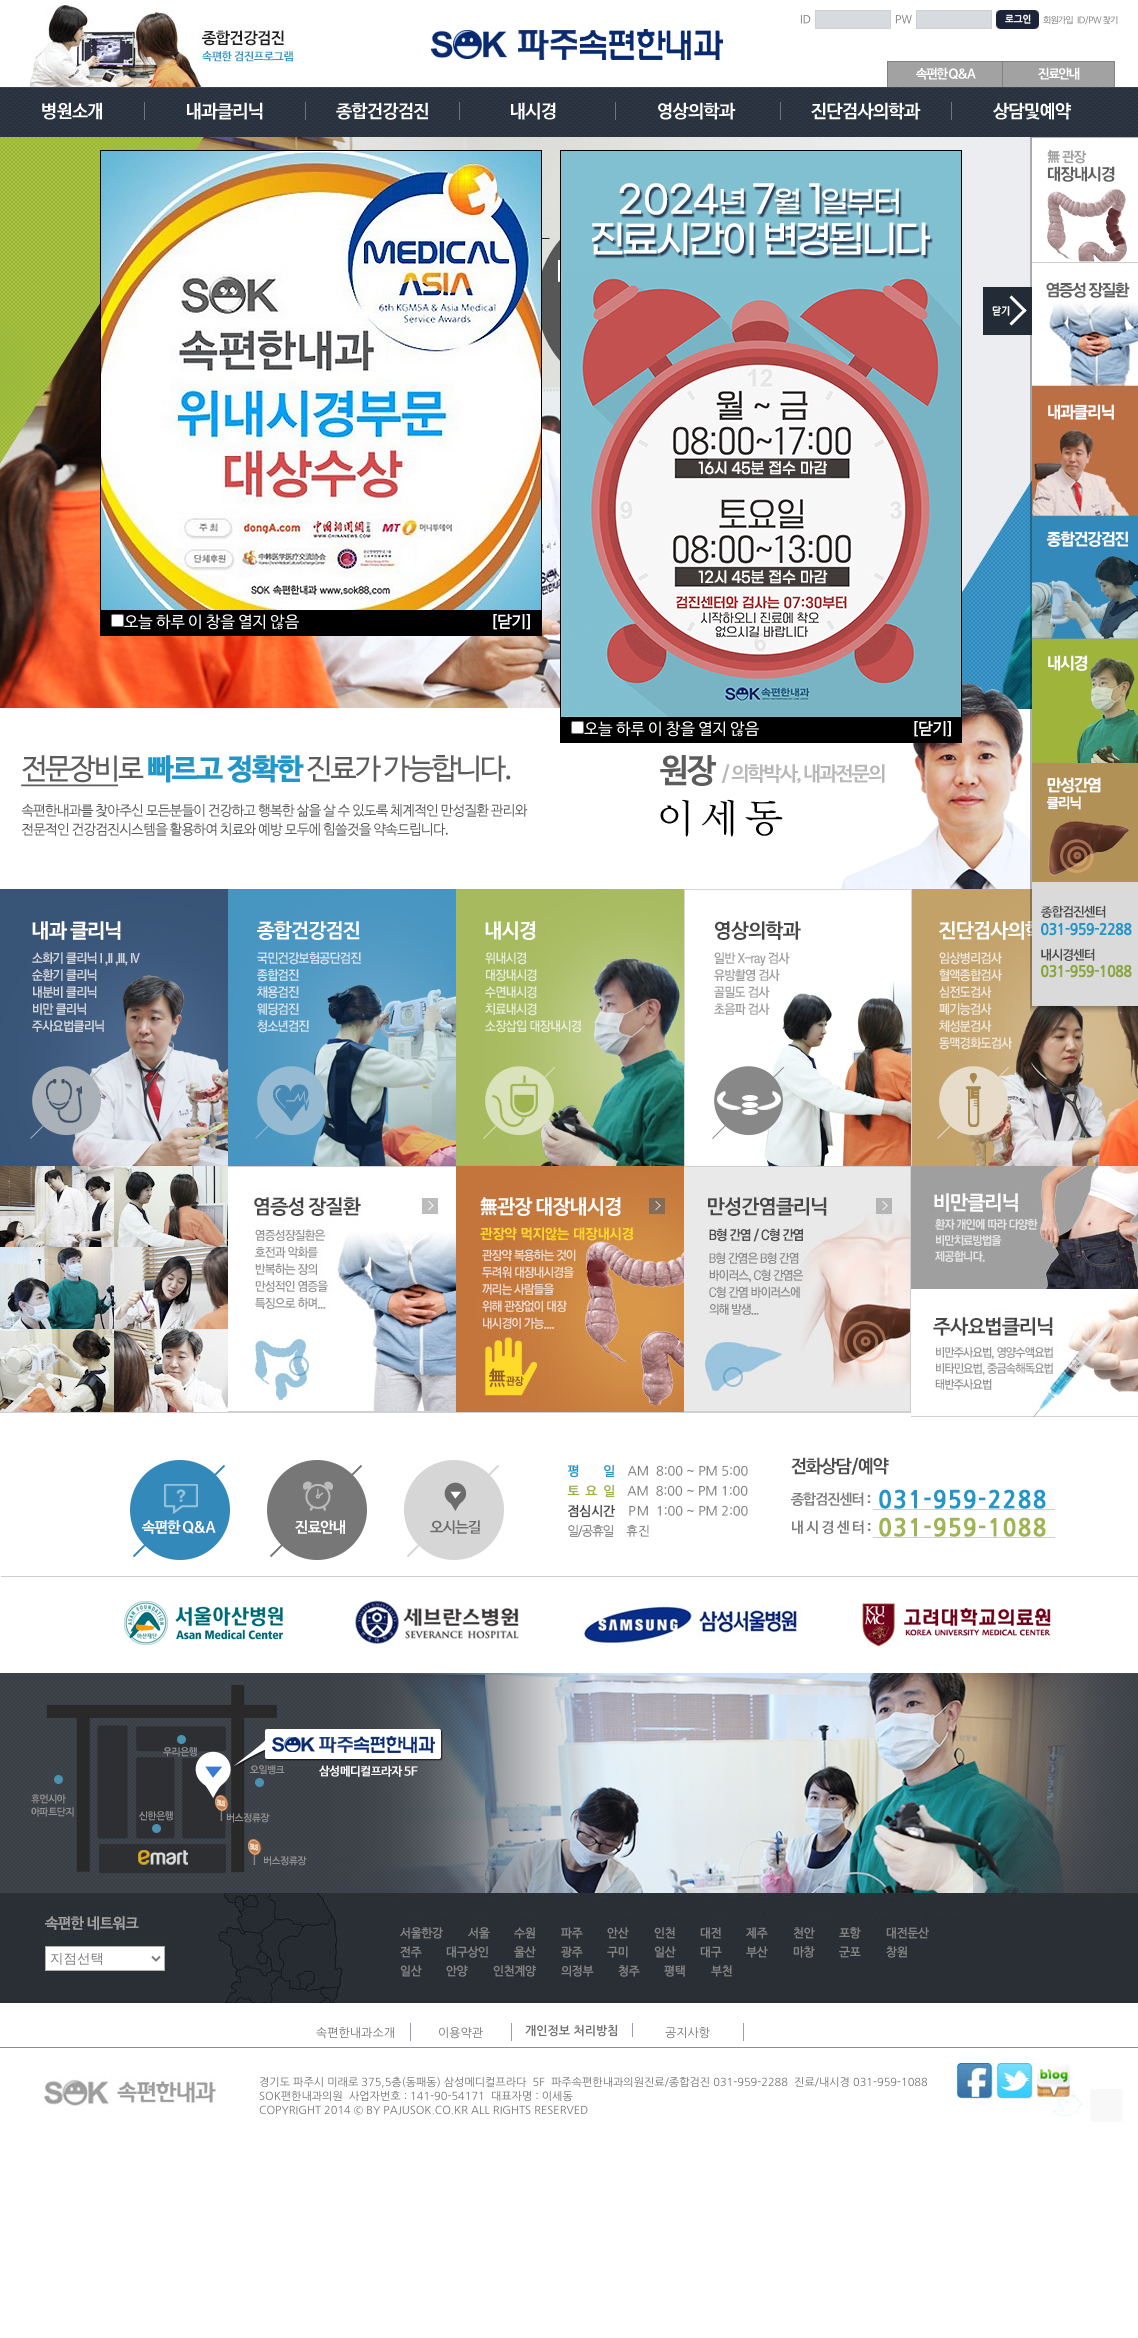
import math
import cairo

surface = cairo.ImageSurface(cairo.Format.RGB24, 1138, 2338)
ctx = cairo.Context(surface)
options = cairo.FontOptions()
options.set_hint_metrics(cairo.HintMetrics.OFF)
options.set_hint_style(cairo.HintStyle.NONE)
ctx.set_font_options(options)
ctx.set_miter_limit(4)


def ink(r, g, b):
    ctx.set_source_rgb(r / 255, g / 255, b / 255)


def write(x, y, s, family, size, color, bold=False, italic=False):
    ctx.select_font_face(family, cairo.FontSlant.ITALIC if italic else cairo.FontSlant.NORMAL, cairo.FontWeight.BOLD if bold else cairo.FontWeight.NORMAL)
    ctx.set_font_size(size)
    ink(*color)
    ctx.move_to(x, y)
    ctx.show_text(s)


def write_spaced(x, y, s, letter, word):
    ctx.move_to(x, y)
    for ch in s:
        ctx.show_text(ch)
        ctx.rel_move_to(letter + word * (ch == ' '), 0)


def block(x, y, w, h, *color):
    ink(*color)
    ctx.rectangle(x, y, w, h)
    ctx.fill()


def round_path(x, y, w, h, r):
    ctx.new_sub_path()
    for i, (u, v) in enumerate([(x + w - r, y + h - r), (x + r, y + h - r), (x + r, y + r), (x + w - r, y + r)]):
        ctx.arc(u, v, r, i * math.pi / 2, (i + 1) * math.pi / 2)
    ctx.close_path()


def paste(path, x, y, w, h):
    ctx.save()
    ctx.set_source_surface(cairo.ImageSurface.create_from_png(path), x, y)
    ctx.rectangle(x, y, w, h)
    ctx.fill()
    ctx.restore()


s1 = dict(family="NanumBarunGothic", size=11, color=(133, 133, 133))
s2 = dict(family="WenQuanYi Zen Hei Medium", size=13.5, color=(124, 124, 124))
s3 = dict(family="NanumBarunGothic", size=12, color=(133, 133, 133), bold=True)
s4 = dict(family="NanumGothic", size=12, color=(111, 111, 111))
s5 = dict(family="NanumGothic", size=12, color=(111, 111, 111), bold=True)
s6 = dict(family="NanumGothic", size=11, color=(111, 111, 111))
s7 = dict(family="NanumBarunGothic", size=16, color=(255, 255, 255))
s8 = dict(family="NanumBarunGothic", size=16, color=(255, 255, 255), bold=True)

ink(255, 255, 255)
ctx.paint()
paste("pic1.png", 0, 87, 1138, 50)
paste("pic2.png", 30, 0, 264, 87)
write(800, 23, "ID", **s1)
ink(215, 218, 222)
ctx.rectangle(815.5, 10.5, 75, 18)
ctx.fill_preserve()
ink(206, 209, 212)
ctx.set_line_width(1)
ctx.stroke()
write(895, 23, "PW", **s1)
ink(215, 218, 222)
ctx.rectangle(916.5, 10.5, 75, 18)
ctx.fill_preserve()
ink(206, 209, 212)
ctx.stroke()
paste("pic3.png", 996, 10, 43, 19)
ctx.set_font_size(9)
ink(133, 133, 133)
write_spaced(1043, 23, "회원가입", -0.5, 0)
write_spaced(1077, 23, "ID/PW 찾기", -0.5, 0)
paste("pic4.png", 431, 29, 292, 31)
paste("pic5.png", 887, 61, 115, 26)
paste("pic6.png", 1002, 61, 113, 26)
paste("pic7.png", 42, 102, 60, 18)
block(144, 102, 1, 18, 108, 115, 124)
paste("pic8.png", 187, 102, 76, 18)
block(305, 102, 1, 18, 108, 115, 124)
paste("pic9.png", 336, 102, 92, 18)
block(459, 102, 1, 18, 108, 115, 124)
paste("pic10.png", 511, 102, 45, 18)
block(615, 102, 1, 18, 108, 115, 124)
paste("pic11.png", 658, 102, 78, 18)
block(780, 102, 1, 18, 108, 115, 124)
paste("pic12.png", 811, 102, 110, 18)
block(951, 102, 1, 18, 108, 115, 124)
paste("pic13.png", 993, 102, 78, 18)
paste("pic14.png", 0, 137, 1032, 572)
paste("pic15.png", 0, 137, 204, 327)
paste("pic16.png", 962, 480, 70, 229)
paste("pic17.png", 1030, 137, 108, 126)
paste("pic19.png", 1030, 263, 108, 123)
paste("pic18.png", 983, 287, 49, 48)
paste("pic20.png", 1030, 386, 108, 130)
paste("pic21.png", 1030, 516, 108, 123)
paste("pic25.png", 21, 683, 1077, 206)
paste("pic22.png", 1030, 639, 108, 124)
paste("pic23.png", 1030, 763, 108, 119)
paste("pic30.png", 912, 889, 226, 277)
paste("pic24.png", 1030, 882, 108, 131)
block(0, 1412, 911, 1, 208, 208, 208)
paste("pic26.png", 0, 889, 228, 277)
paste("pic27.png", 228, 889, 228, 277)
paste("pic28.png", 456, 889, 228, 277)
paste("pic29.png", 684, 889, 228, 277)
paste("pic31.png", 0, 1166, 228, 246)
paste("pic32.png", 228, 1166, 228, 246)
paste("pic33.png", 456, 1166, 228, 246)
paste("pic34.png", 684, 1166, 227, 246)
paste("pic35.png", 911, 1166, 227, 123)
paste("pic36.png", 911, 1294, 227, 123)
paste("pic37.png", 1, 1457, 1137, 191)
paste("pic38.png", 130, 1460, 100, 100)
paste("pic39.png", 267, 1460, 100, 100)
paste("pic40.png", 404, 1460, 100, 100)
paste("pic41.png", 0, 1673, 1138, 330)
ink(255, 255, 255)
ctx.rectangle(45.5, 1946.5, 119, 24)
ctx.fill_preserve()
ink(175, 175, 175)
ctx.stroke()
ctx.new_path()
ctx.move_to(152, 1956.5)
ctx.line_to(156, 1960.5)
ctx.line_to(160, 1956.5)
ink(124, 124, 124)
ctx.set_line_width(2)
ctx.stroke()
write(50, 1963, "지점선택", **s2)
write(400, 1937, "서울한강", **s3)
write(468, 1937, "서울", **s3)
write(514, 1937, "수원", **s3)
write(561, 1937, "파주", **s3)
write(607, 1937, "안산", **s3)
write(654, 1937, "인천", **s3)
write(700, 1937, "대전", **s3)
write(746, 1937, "제주", **s3)
write(793, 1937, "천안", **s3)
write(839, 1937, "포항", **s3)
write(886, 1937, "대전둔산", **s3)
write(400, 1956, "전주", **s3)
write(446, 1956, "대구상인", **s3)
write(514, 1956, "울산", **s3)
write(561, 1956, "광주", **s3)
write(607, 1956, "구미", **s3)
write(654, 1956, "일산", **s3)
write(700, 1956, "대구", **s3)
write(746, 1956, "부산", **s3)
write(793, 1956, "마창", **s3)
write(839, 1956, "군포", **s3)
write(886, 1956, "창원", **s3)
write(400, 1975, "일산", **s3)
write(446, 1975, "안양", **s3)
write(493, 1975, "인천계양", **s3)
write(561, 1975, "의정부", **s3)
write(618, 1975, "청주", **s3)
write(664, 1975, "평택", **s3)
write(711, 1975, "부천", **s3)
paste("pic42.png", 0, 2047, 1138, 75)
block(410, 2023, 1, 18, 153, 153, 204)
write(316, 2037, "속편한내과소개", **s4)
block(511, 2023, 1, 18, 153, 153, 204)
write(438, 2037, "이용약관", **s4)
block(632, 2023, 1, 14, 153, 153, 204)
write(525, 2035, "개인정보 처리방침", **s5)
block(743, 2023, 1, 18, 153, 153, 204)
write(665, 2037, "공지사항", **s4)
write(259, 2086, "경기도 파주시 미래로 375,5층(동패동) 삼성메디컬프라다  5F  파주속편한내과의원진료/종합검진 031-959-2288  진료/내시경 031-959-1088", **s6)
write(259, 2100, "SOK편한내과의원  사업자번호 : 141-90-54171  대표자명 : 이세동", **s6)
write(259, 2114, "COPYRIGHT 2014 © BY PAJUSOK.CO.KR ALL RIGHTS RESERVED", **s6)
paste("pic43.png", 957, 2063, 113, 36)
ctx.rectangle(100.5, 150.5, 441, 485)
ink(0, 0, 0)
ctx.set_line_width(1)
ctx.stroke()
paste("pic44.png", 101, 151, 440, 459)
block(101, 610, 440, 25, 0, 0, 0)
ink(255, 255, 255)
round_path(111.5, 614.5, 12, 12, 1.5)
ctx.fill_preserve()
ink(118, 118, 118)
ctx.stroke()
write(124, 627, "오늘 하루 이 창을 열지 않음", **s7)
write(490, 627, "[닫기]", **s8)
ctx.rectangle(560.5, 150.5, 401, 592)
ink(0, 0, 0)
ctx.stroke()
paste("pic45.png", 561, 151, 400, 566)
block(561, 717, 400, 25, 0, 0, 0)
ink(255, 255, 255)
round_path(571.5, 721.5, 12, 12, 1.5)
ctx.fill_preserve()
ink(118, 118, 118)
ctx.stroke()
write(584, 734, "오늘 하루 이 창을 열지 않음", **s7)
write(911, 734, "[닫기]", **s8)
surface.write_to_png("screenshot.png")
